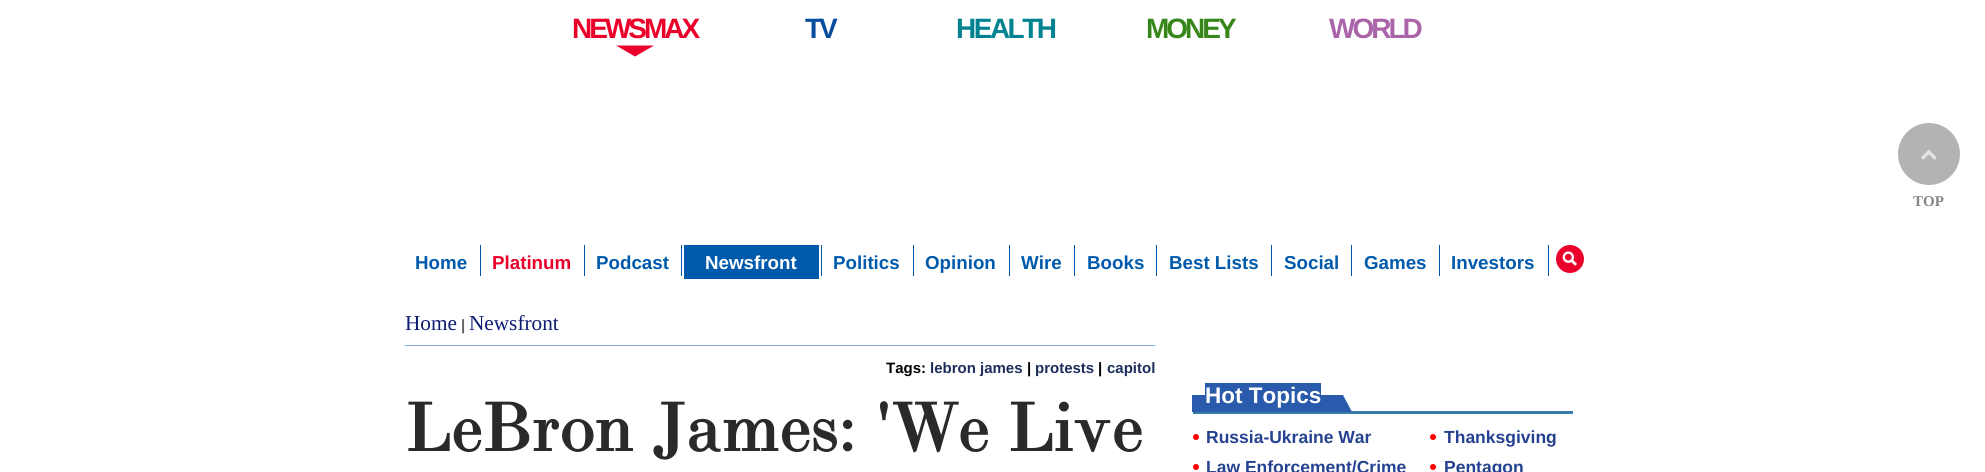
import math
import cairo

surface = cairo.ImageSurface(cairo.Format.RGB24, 1985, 472)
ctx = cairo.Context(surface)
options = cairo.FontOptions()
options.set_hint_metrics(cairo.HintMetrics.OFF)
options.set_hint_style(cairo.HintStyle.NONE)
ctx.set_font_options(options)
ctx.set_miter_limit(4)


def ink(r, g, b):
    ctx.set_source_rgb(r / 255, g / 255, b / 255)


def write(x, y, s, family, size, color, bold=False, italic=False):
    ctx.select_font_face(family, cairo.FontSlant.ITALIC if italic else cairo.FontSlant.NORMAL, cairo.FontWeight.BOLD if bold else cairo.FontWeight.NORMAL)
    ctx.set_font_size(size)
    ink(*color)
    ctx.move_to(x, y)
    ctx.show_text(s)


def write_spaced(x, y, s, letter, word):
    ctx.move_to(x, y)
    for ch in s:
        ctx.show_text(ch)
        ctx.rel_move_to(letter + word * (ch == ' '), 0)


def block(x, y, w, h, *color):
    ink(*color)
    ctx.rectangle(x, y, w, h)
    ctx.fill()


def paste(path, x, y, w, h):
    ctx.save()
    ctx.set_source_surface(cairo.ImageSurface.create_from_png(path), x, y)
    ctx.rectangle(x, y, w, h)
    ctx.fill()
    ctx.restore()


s1 = dict(family="Liberation Serif", size=15, color=(132, 132, 132), bold=True)
s2 = dict(family="Liberation Serif", size=21.25, color=(13, 27, 115))
s3 = dict(family="Liberation Sans", size=15, color=(99, 100, 102), bold=True)
s4 = dict(family="Liberation Sans", size=15, color=(0, 0, 0), bold=True)
s5 = dict(family="Liberation Sans", size=15, color=(29, 45, 92), bold=True)
s6 = dict(family="Liberation Sans", size=22.5, color=(255, 255, 255), bold=True)
s7 = dict(family="Liberation Sans", size=17.5, color=(37, 66, 145), bold=True)
s8 = dict(family="Liberation Sans", size=18.75, color=(0, 90, 171), bold=True)
s9 = dict(family="Liberation Sans", size=18.75, color=(234, 0, 42), bold=True)
s10 = dict(family="Liberation Sans", size=18.75, color=(255, 255, 255), bold=True)

ink(255, 255, 255)
ctx.paint()
ctx.select_font_face("Liberation Sans", cairo.FontSlant.NORMAL, cairo.FontWeight.BOLD)
ctx.set_font_size(28)
ink(234, 0, 42)
write_spaced(572, 38, "NEWSMAX", -3, 0)
ctx.new_path()
ctx.move_to(616, 45.5)
ctx.line_to(654, 45.5)
ctx.line_to(635, 56.5)
ctx.close_path()
ctx.fill()
ink(6, 77, 157)
write_spaced(805, 38, "TV", -3, 0)
ink(0, 130, 144)
write_spaced(956, 38, "HEALTH", -2.5, 0)
ink(54, 134, 25)
write_spaced(1146, 38, "MONEY", -3, 0)
ink(170, 100, 170)
write_spaced(1329, 38, "WORLD", -3, 0)
ink(179, 179, 179)
ctx.new_path()
ctx.arc(1929, 154, 31, 0, 2 * math.pi)
ctx.fill()
paste("pic1.png", 1921, 149, 16, 11)
write(1913, 206, "TOP", **s1)
block(405, 345, 750, 1, 129, 171, 211)
write(405, 330, "Home", **s2)
write(461, 330, "|", **s3)
write(469, 330, "Newsfront", **s2)
write(886, 373, "Tags:", **s4)
write(930, 373, "lebron james", **s5)
write(1027, 373, "|", **s4)
write(1035, 373, "protests", **s5)
write(1098, 373, "|", **s4)
write(1107, 373, "capitol", **s5)
ctx.select_font_face("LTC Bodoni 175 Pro", cairo.FontSlant.NORMAL, cairo.FontWeight.BOLD)
ctx.set_font_size(67.5)
ink(42, 42, 42)
write_spaced(405, 451, "LeBron James: 'We Live", 1.25, 0)
block(1193, 411, 380, 3, 58, 124, 169)
ink(41, 90, 171)
ctx.new_path()
ctx.move_to(1352, 412)
ctx.line_to(1192, 412)
ctx.line_to(1192, 395)
ctx.line_to(1343, 395)
ctx.close_path()
ctx.fill()
block(1205, 383, 116, 12, 41, 90, 171)
write(1205, 403, "Hot Topics", **s6)
ink(255, 0, 0)
ctx.new_path()
ctx.arc(1196, 437, 3, 0, 2 * math.pi)
ctx.fill()
write(1206, 443, "Russia-Ukraine War", **s7)
ink(255, 0, 0)
ctx.new_path()
ctx.arc(1433, 437, 3, 0, 2 * math.pi)
ctx.fill()
write(1444, 443, "Thanksgiving", **s7)
ink(255, 0, 0)
ctx.new_path()
ctx.arc(1196, 467, 3, 0, 2 * math.pi)
ctx.fill()
write(1206, 473, "Law Enforcement/Crime", **s7)
ink(255, 0, 0)
ctx.new_path()
ctx.arc(1433, 467, 3, 0, 2 * math.pi)
ctx.fill()
write(1444, 473, "Pentagon", **s7)
write(415, 269, "Home", **s8)
block(480, 245, 1, 31, 0, 90, 171)
write(492, 269, "Platinum", **s9)
block(584, 245, 1, 31, 0, 90, 171)
write(596, 269, "Podcast", **s8)
block(681, 245, 1, 31, 0, 90, 171)
block(684, 245, 135, 34, 0, 90, 171)
write(705, 269, "Newsfront", **s10)
block(821, 245, 1, 31, 0, 90, 171)
write(833, 269, "Politics", **s8)
block(913, 245, 1, 31, 0, 90, 171)
write(925, 269, "Opinion", **s8)
block(1009, 245, 1, 31, 0, 90, 171)
write(1021, 269, "Wire", **s8)
block(1074, 245, 1, 31, 0, 90, 171)
write(1087, 269, "Books", **s8)
block(1156, 245, 1, 31, 0, 90, 171)
write(1169, 269, "Best Lists", **s8)
block(1271, 245, 1, 31, 0, 90, 171)
write(1284, 269, "Social", **s8)
block(1351, 245, 1, 31, 0, 90, 171)
write(1364, 269, "Games", **s8)
block(1439, 245, 1, 31, 0, 90, 171)
write(1451, 269, "Investors", **s8)
block(1548, 245, 1, 31, 0, 90, 171)
ink(234, 0, 42)
ctx.new_path()
ctx.arc(1570, 259, 14, 0, 2 * math.pi)
ctx.fill()
paste("pic2.png", 1562, 251, 15, 15)
surface.write_to_png("screenshot.png")
